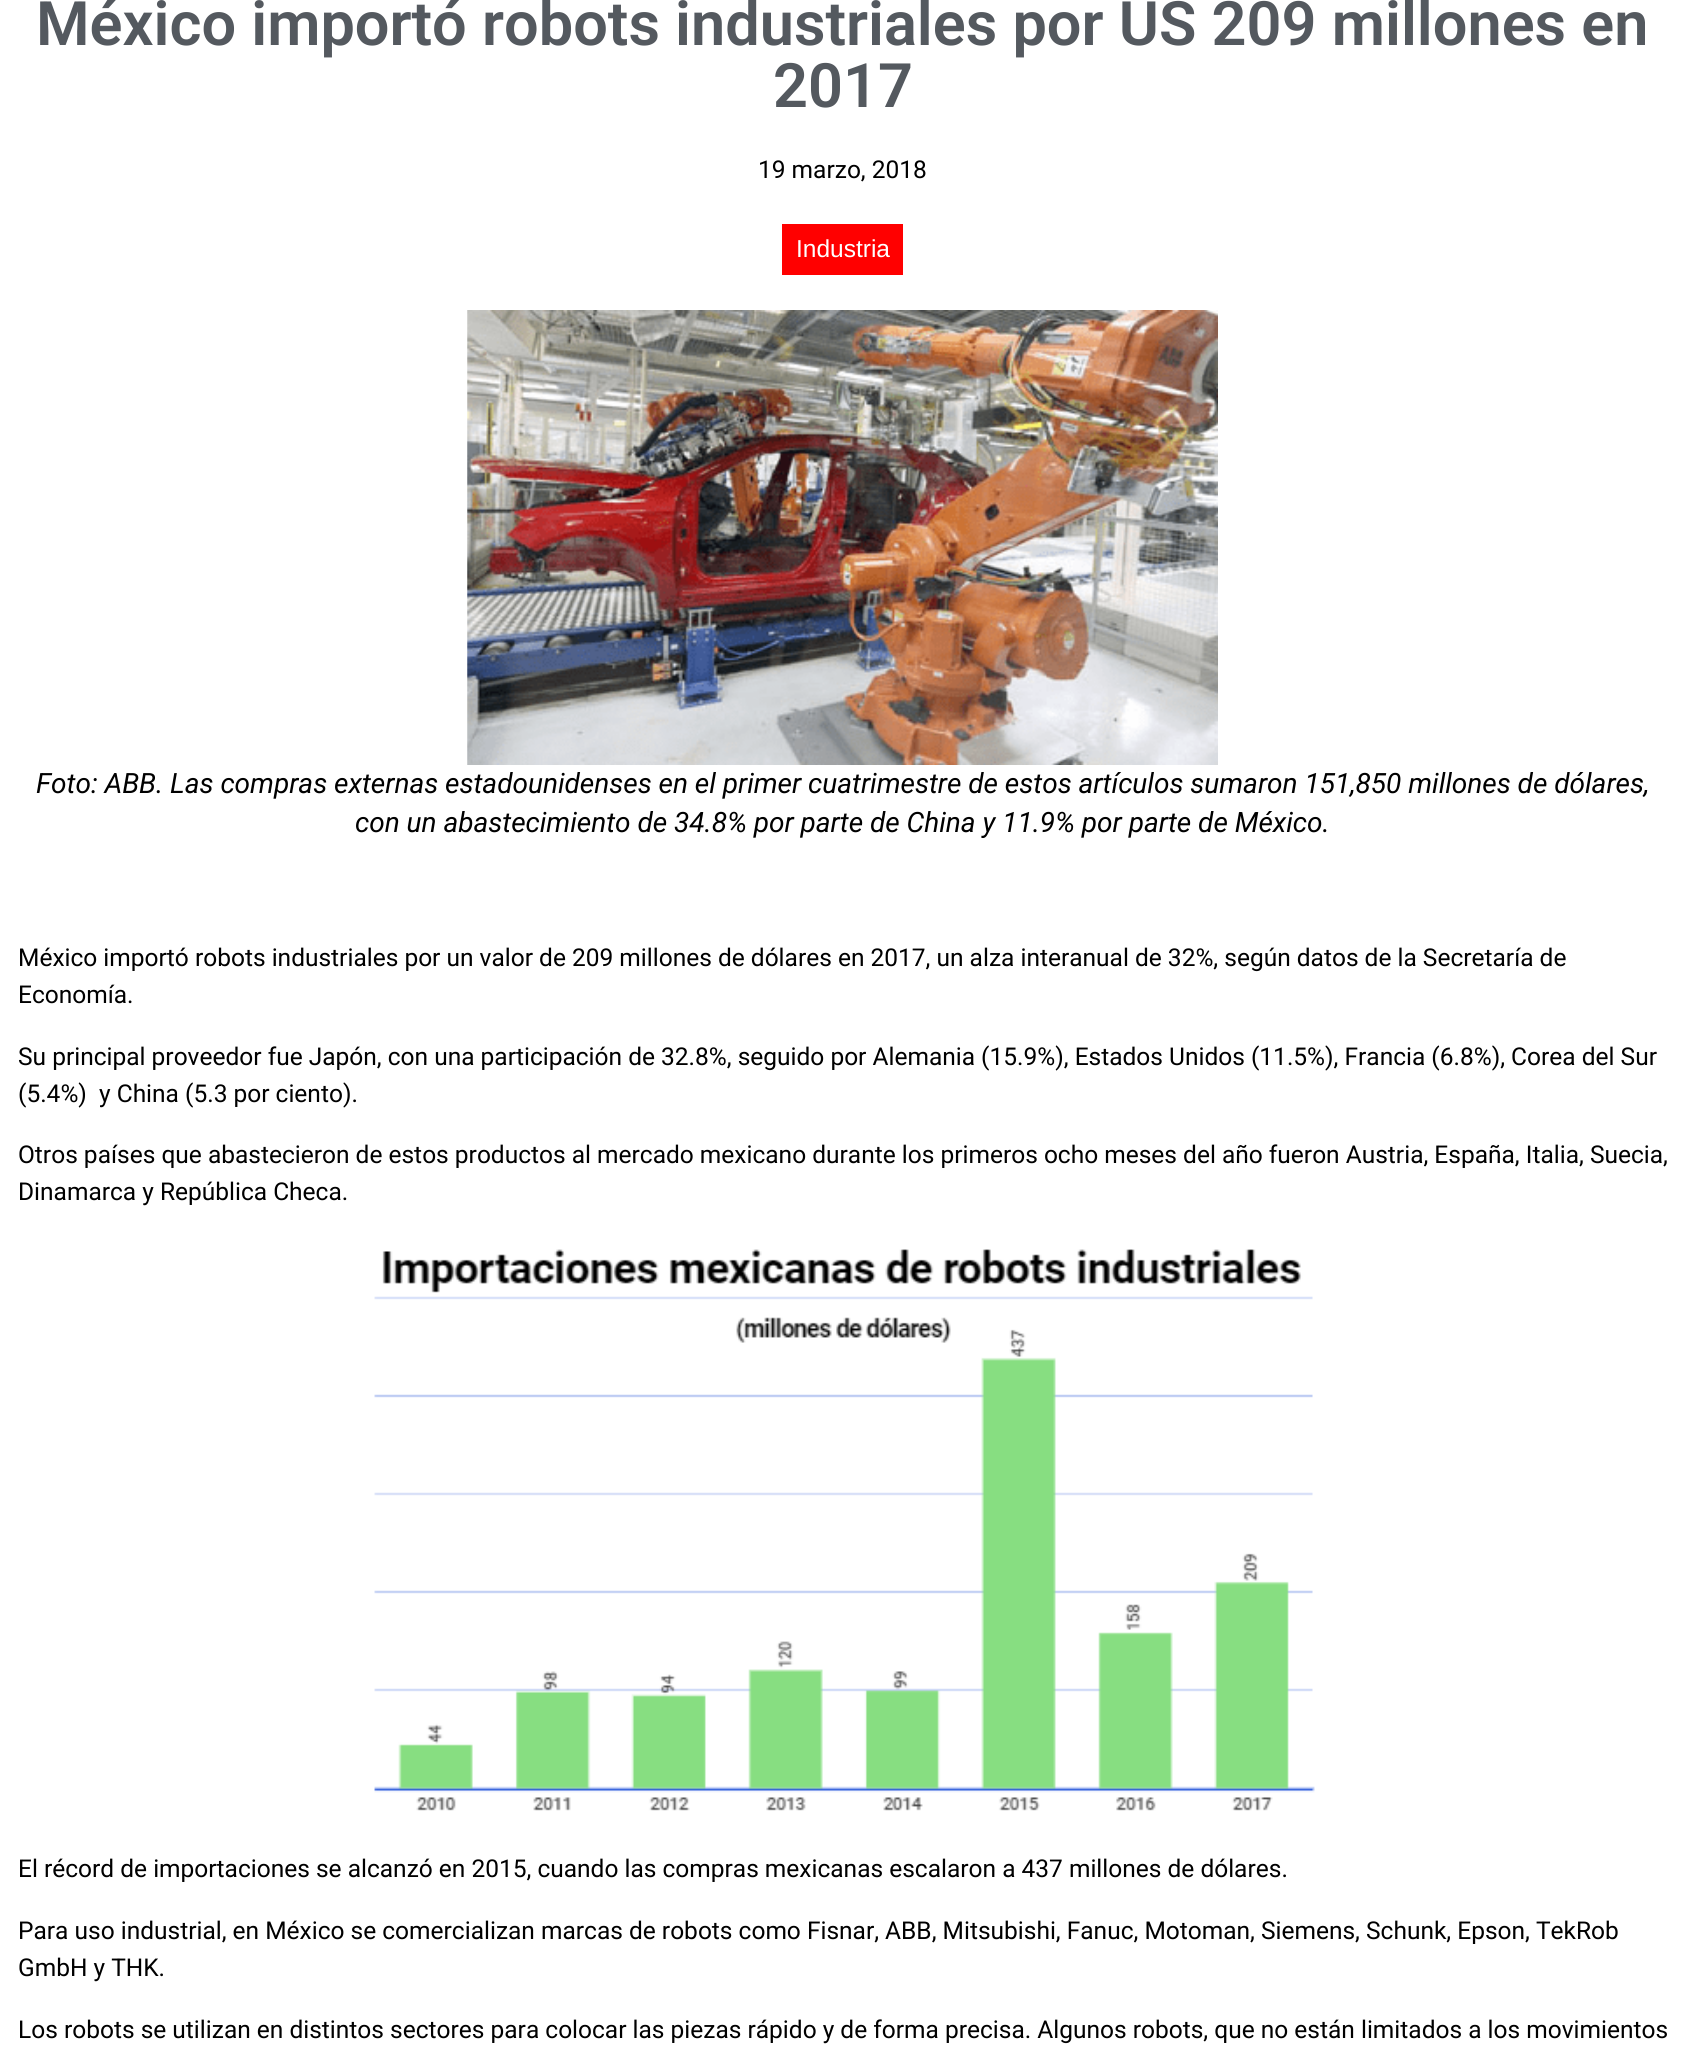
import math
import cairo

surface = cairo.ImageSurface(cairo.Format.RGB24, 1684, 2069)
ctx = cairo.Context(surface)
options = cairo.FontOptions()
options.set_hint_metrics(cairo.HintMetrics.OFF)
options.set_hint_style(cairo.HintStyle.NONE)
ctx.set_font_options(options)
ctx.set_miter_limit(4)


def ink(r, g, b):
    ctx.set_source_rgb(r / 255, g / 255, b / 255)


def write(x, y, s, family, size, color, bold=False, italic=False):
    ctx.select_font_face(family, cairo.FontSlant.ITALIC if italic else cairo.FontSlant.NORMAL, cairo.FontWeight.BOLD if bold else cairo.FontWeight.NORMAL)
    ctx.set_font_size(size)
    ink(*color)
    ctx.move_to(x, y)
    ctx.show_text(s)


def block(x, y, w, h, *color):
    ink(*color)
    ctx.rectangle(x, y, w, h)
    ctx.fill()


def paste(path, x, y, w, h):
    ctx.save()
    ctx.set_source_surface(cairo.ImageSurface.create_from_png(path), x, y)
    ctx.rectangle(x, y, w, h)
    ctx.fill()
    ctx.restore()


s1 = dict(family="Roboto SemiBold", size=61.25, color=(84, 89, 95))
s2 = dict(family="Roboto", size=24.5, color=(0, 0, 0))
s3 = dict(family="Liberation Sans", size=24.5, color=(255, 255, 255))
s4 = dict(family="Roboto", size=28, color=(0, 0, 0), italic=True)

ink(255, 255, 255)
ctx.paint()
write(36, 45, "México importó robots industriales por US 209 millones en", **s1)
write(773, 107, "2017", **s1)
write(758, 178, "19 marzo, 2018", **s2)
block(782, 224, 121, 51, 255, 0, 0)
write(796, 257, "Industria", **s3)
paste("pic1.png", 467, 310, 751, 455)
write(36, 793, "Foto: ABB. Las compras externas estadounidenses en el primer cuatrimestre de estos artículos sumaron 151,850 millones de dólares,", **s4)
write(355, 832, "con un abastecimiento de 34.8% por parte de China y 11.9% por parte de México.", **s4)
write(18, 966, "México importó robots industriales por un valor de 209 millones de dólares en 2017, un alza interanual de 32%, según datos de la Secretaría de", **s2)
write(18, 1003, "Economía.", **s2)
write(18, 1065, "Su principal proveedor fue Japón, con una participación de 32.8%, seguido por Alemania (15.9%), Estados Unidos (11.5%), Francia (6.8%), Corea del Sur", **s2)
write(18, 1102, "(5.4%)  y China (5.3 por ciento).", **s2)
write(18, 1163, "Otros países que abastecieron de estos productos al mercado mexicano durante los primeros ocho meses del año fueron Austria, España, Italia, Suecia,", **s2)
write(18, 1200, "Dinamarca y República Checa.", **s2)
paste("pic2.png", 374, 1249, 941, 562)
write(18, 1877, "El récord de importaciones se alcanzó en 2015, cuando las compras mexicanas escalaron a 437 millones de dólares.", **s2)
write(18, 1939, "Para uso industrial, en México se comercializan marcas de robots como Fisnar, ABB, Mitsubishi, Fanuc, Motoman, Siemens, Schunk, Epson, TekRob", **s2)
write(18, 1976, "GmbH y THK.", **s2)
write(18, 2038, "Los robots se utilizan en distintos sectores para colocar las piezas rápido y de forma precisa. Algunos robots, que no están limitados a los movimientos", **s2)
surface.write_to_png("screenshot.png")
